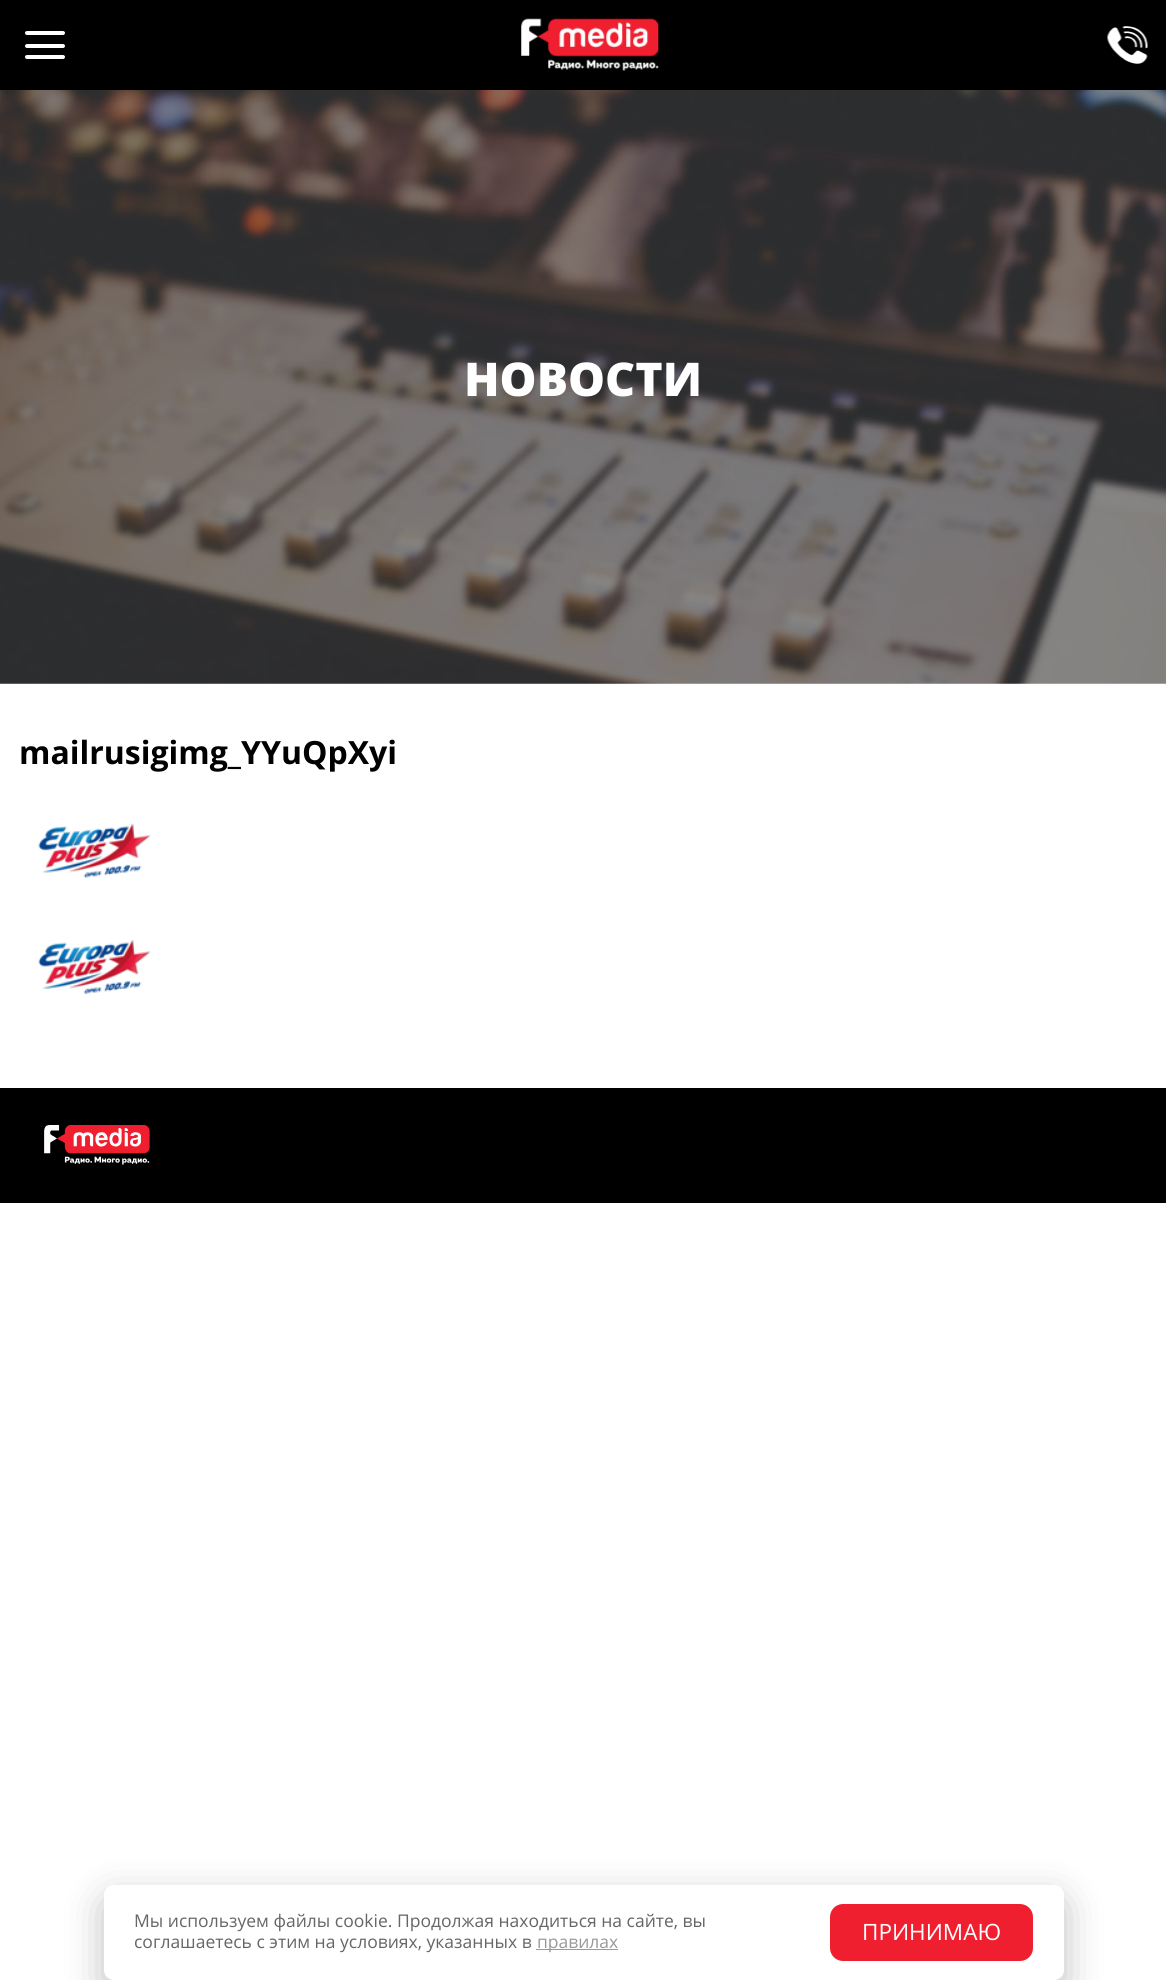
import math
import cairo

surface = cairo.ImageSurface(cairo.Format.RGB24, 1166, 1980)
ctx = cairo.Context(surface)
options = cairo.FontOptions()
options.set_hint_metrics(cairo.HintMetrics.OFF)
options.set_hint_style(cairo.HintStyle.NONE)
ctx.set_font_options(options)
ctx.set_miter_limit(4)


def ink(r, g, b):
    ctx.set_source_rgb(r / 255, g / 255, b / 255)


def write(x, y, s, family, size, color, bold=False, italic=False):
    ctx.select_font_face(family, cairo.FontSlant.ITALIC if italic else cairo.FontSlant.NORMAL, cairo.FontWeight.BOLD if bold else cairo.FontWeight.NORMAL)
    ctx.set_font_size(size)
    ink(*color)
    ctx.move_to(x, y)
    ctx.show_text(s)


def block(x, y, w, h, *color):
    ink(*color)
    ctx.rectangle(x, y, w, h)
    ctx.fill()


def round_path(x, y, w, h, r):
    ctx.new_sub_path()
    for i, (u, v) in enumerate([(x + w - r, y + h - r), (x + r, y + h - r), (x + r, y + r), (x + w - r, y + r)]):
        ctx.arc(u, v, r, i * math.pi / 2, (i + 1) * math.pi / 2)
    ctx.close_path()


def blur_box(x, y, w, h, r, blur, alpha):
    ctx.push_group_with_content(cairo.Content.ALPHA)
    ctx.set_operator(cairo.Operator.SOURCE)
    for i in range(15, -16, -2):
        e = blur * i / 6
        if min(w, h) + 2 * e > 0:
            ctx.set_source_rgba(0, 0, 0, alpha * math.erfc((i - 1) / 8.5) / 2)
            round_path(x - e, y - e, w + 2 * e, h + 2 * e, max(0, min(r + e + blur * .6, min(w, h) / 2 + e)))
            ctx.fill()
    ctx.mask(ctx.pop_group())


def paste(path, x, y, w, h):
    ctx.save()
    ctx.set_source_surface(cairo.ImageSurface.create_from_png(path), x, y)
    ctx.rectangle(x, y, w, h)
    ctx.fill()
    ctx.restore()


s1 = dict(family="Open Sans ExtraBold", size=46.5, color=(255, 255, 255))
s2 = dict(family="Open Sans", size=32, color=(0, 0, 0), bold=True)
s3 = dict(family="Open Sans", size=17.5, color=(102, 102, 102))
s4 = dict(family="Open Sans", size=17.5, color=(153, 153, 153))
s5 = dict(family="Open Sans", size=22.5, color=(255, 255, 255))

ink(255, 255, 255)
ctx.paint()
block(0, 0, 1166, 90, 0, 0, 0)
ink(255, 255, 255)
round_path(25, 31, 40, 4, 2)
ctx.fill()
round_path(25, 44, 40, 4, 2)
ctx.fill()
round_path(25, 55, 40, 4, 2)
ctx.fill()
paste("pic1.png", 521, 18, 139, 53)
paste("pic2.png", 1107, 26, 41, 38)
paste("pic3.png", 0, 90, 1166, 594)
write(464, 396, "НОВОСТИ", **s1)
write(19, 764, "mailrusigimg_YYuQpXyi", **s2)
paste("pic4.png", 38, 823, 113, 55)
paste("pic5.png", 38, 940, 113, 54)
block(0, 1088, 1166, 115, 0, 0, 0)
paste("pic6.png", 44, 1125, 106, 40)
ink(40, 40, 40)
blur_box(104, 1898, 960, 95, 10, 19, 0.3)
ink(255, 255, 255)
round_path(104, 1885, 960, 95, 10)
ctx.fill()
write(134, 1927, "Мы используем файлы cookie. Продолжая находиться на сайте, вы", **s3)
write(134, 1948, "соглашаетесь с этим на условиях, указанных в", **s3)
block(536, 1949, 82, 1, 153, 153, 153)
write(537, 1948, "правилах", **s4)
ink(240, 31, 48)
round_path(830, 1904, 203, 57, 13)
ctx.fill()
write(862, 1940, "ПРИНИМАЮ", **s5)
surface.write_to_png("screenshot.png")
